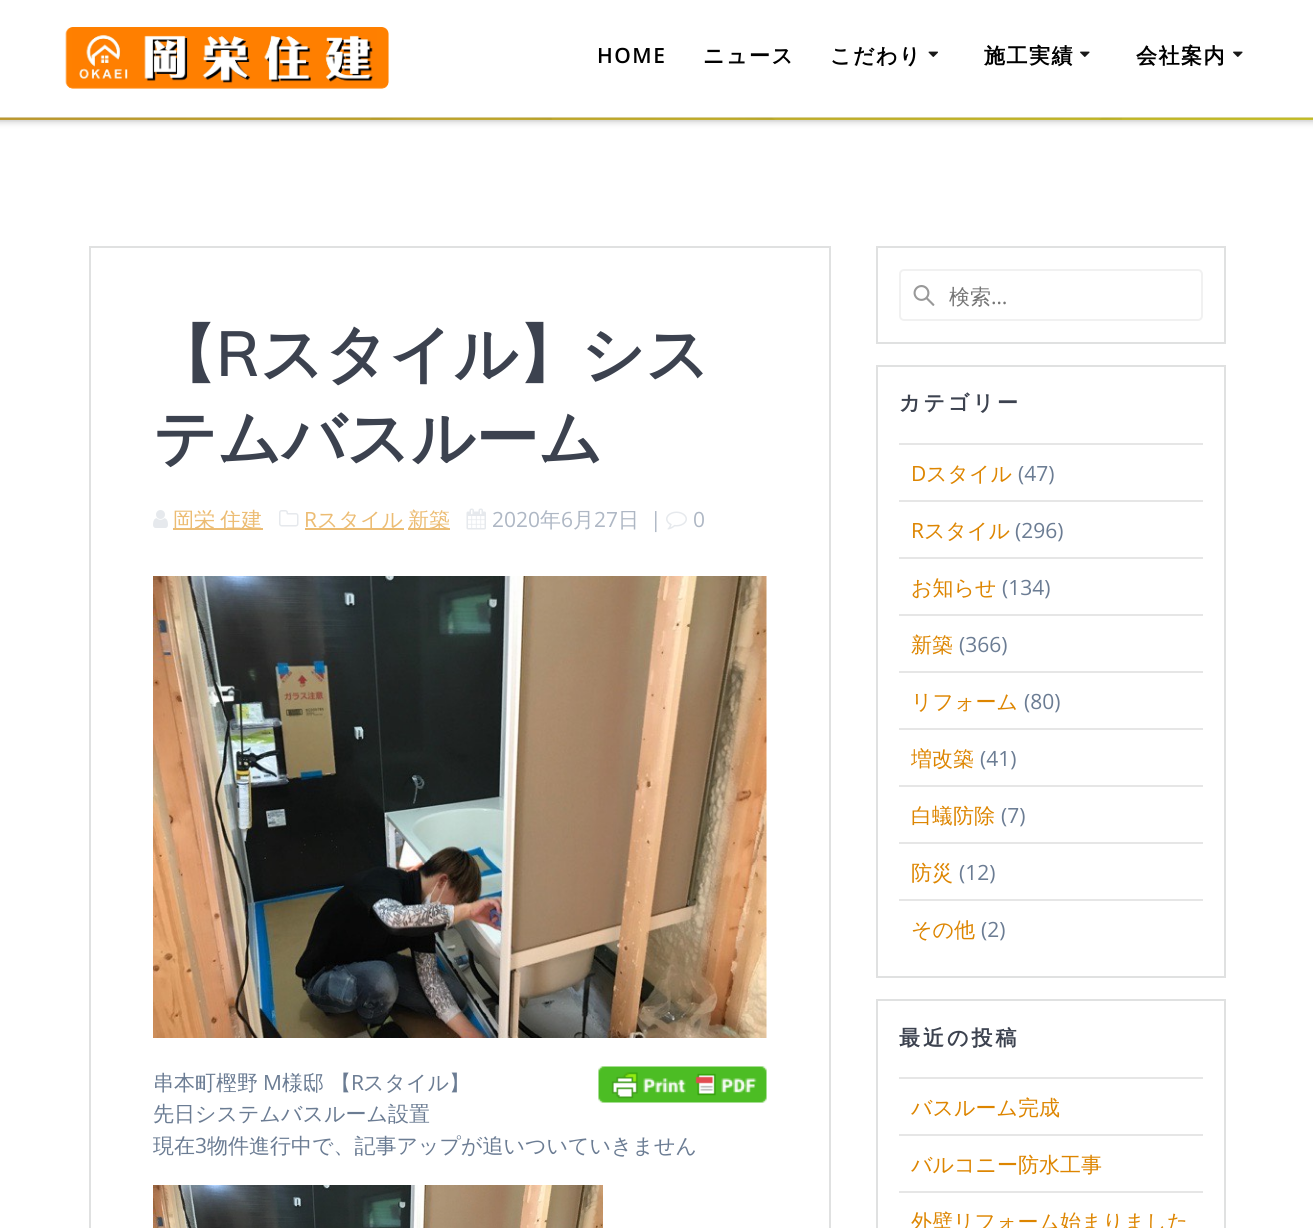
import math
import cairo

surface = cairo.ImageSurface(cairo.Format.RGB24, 1313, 1228)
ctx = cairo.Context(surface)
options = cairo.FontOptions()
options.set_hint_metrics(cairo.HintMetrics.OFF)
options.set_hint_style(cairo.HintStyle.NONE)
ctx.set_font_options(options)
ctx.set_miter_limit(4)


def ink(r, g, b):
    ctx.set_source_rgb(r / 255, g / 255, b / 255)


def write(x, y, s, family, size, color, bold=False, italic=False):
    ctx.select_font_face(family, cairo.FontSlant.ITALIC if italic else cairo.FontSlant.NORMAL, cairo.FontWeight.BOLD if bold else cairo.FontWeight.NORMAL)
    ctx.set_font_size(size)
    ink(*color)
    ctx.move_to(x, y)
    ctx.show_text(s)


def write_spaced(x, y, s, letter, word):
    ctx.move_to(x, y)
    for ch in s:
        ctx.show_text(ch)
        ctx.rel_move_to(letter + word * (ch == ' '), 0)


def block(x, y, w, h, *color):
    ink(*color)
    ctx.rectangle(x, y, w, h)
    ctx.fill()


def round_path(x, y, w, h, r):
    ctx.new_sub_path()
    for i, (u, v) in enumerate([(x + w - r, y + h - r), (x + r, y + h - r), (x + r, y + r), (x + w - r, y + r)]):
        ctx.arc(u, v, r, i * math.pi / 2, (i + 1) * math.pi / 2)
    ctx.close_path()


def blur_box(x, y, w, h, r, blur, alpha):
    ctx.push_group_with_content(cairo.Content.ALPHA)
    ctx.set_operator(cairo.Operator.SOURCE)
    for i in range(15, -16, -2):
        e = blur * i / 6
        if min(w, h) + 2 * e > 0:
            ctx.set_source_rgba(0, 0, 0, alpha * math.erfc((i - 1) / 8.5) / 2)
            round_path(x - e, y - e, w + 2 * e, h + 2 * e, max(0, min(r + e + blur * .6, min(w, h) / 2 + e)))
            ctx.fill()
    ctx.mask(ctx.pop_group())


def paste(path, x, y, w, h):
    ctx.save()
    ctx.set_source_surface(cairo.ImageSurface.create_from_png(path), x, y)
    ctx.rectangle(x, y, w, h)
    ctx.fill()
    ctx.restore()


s1 = dict(family="WenQuanYi Zen Hei", size=63, color=(60, 66, 79), bold=True)
s2 = dict(family="Muli SemiBold", size=63, color=(60, 66, 79))
s3 = dict(family="Open Sans", size=21, color=(236, 188, 115))
s4 = dict(family="WenQuanYi Zen Hei Medium", size=21, color=(236, 188, 115))
s5 = dict(family="Open Sans", size=21, color=(174, 183, 196))
s6 = dict(family="WenQuanYi Zen Hei Medium", size=21, color=(174, 183, 196))
s7 = dict(family="WenQuanYi Zen Hei Medium", size=21, color=(107, 124, 147))
s8 = dict(family="Open Sans", size=21, color=(107, 124, 147))
s9 = dict(family="WenQuanYi Zen Hei Medium", size=21, color=(117, 117, 117))
s10 = dict(family="Open Sans", size=21, color=(117, 117, 117))
s11 = dict(family="Open Sans", size=21, color=(221, 133, 0))
s12 = dict(family="WenQuanYi Zen Hei Medium", size=21, color=(221, 133, 0))

ink(255, 255, 255)
ctx.paint()
gradient = cairo.LinearGradient(159, -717, 1155, 279)
gradient.add_color_stop_rgba(0, 0.894, 0.651, 0.255, 1)
gradient.add_color_stop_rgba(1, 0.949, 0.918, 0.204, 1)
ctx.set_source(gradient)
ctx.rectangle(0, 117, 1313, 3)
ctx.fill()
paste("pic4.png", 370, 117, 752, 3)
ink(0, 0, 0)
blur_box(-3, -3, 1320, 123, 0, 4, 0.33)
block(0, 0, 1313, 117, 255, 255, 255)
ctx.set_source_rgba(1, 1, 1, 0.5)
ctx.rectangle(0, 117, 1313, 1)
ctx.fill()
paste("pic1.png", 65, 27, 324, 62)
ctx.select_font_face("Open Sans SemiBold")
ctx.set_font_size(21)
ink(0, 0, 0)
write_spaced(597, 63, "HOME", 1.5, 0)
ctx.select_font_face("WenQuanYi Zen Hei", cairo.FontSlant.NORMAL, cairo.FontWeight.BOLD)
write_spaced(703, 63, "ニュース", 1.5, 0)
write_spaced(830, 63, "こだわり", 1.5, 0)
paste("pic2.png", 928, 51, 10, 6)
write_spaced(984, 63, "施工実績", 1.5, 0)
paste("pic3.png", 1080, 51, 10, 6)
write_spaced(1136, 63, "会社案内", 1.5, 0)
paste("pic3.png", 1233, 51, 10, 6)
ctx.rectangle(90, 247, 740, 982)
ink(224, 225, 225)
ctx.stroke()
write(153, 376, "【", **s1)
write(216, 376, "R", **s2)
write(260, 376, "スタイル】シス", **s1)
write(153, 460, "テムバスルーム", **s1)
paste("pic5.png", 153, 510, 15, 18)
block(173, 528, 90, 2, 236, 188, 115)
ctx.select_font_face("WenQuanYi Zen Hei Medium")
ctx.set_font_size(21)
write_spaced(173, 527, "岡栄 住建", 0, -1)
paste("pic6.png", 279, 510, 20, 17)
write(304, 527, "R", **s3)
block(305, 528, 99, 2, 236, 188, 115)
write(317, 527, "スタイル", **s4)
block(408, 528, 42, 2, 236, 188, 115)
write(408, 527, "新築", **s4)
paste("pic7.png", 466, 508, 20, 22)
write(492, 527, "2020", **s5)
write(540, 527, "年", **s6)
write(561, 527, "6", **s5)
write(573, 527, "月", **s6)
write(594, 527, "27", **s5)
write(618, 527, "日", **s6)
write(650, 527, "|", **s5)
paste("pic8.png", 666, 511, 21, 19)
write(693, 527, "0", **s5)
paste("pic9.png", 153, 576, 614, 462)
paste("pic10.png", 598, 1066, 169, 37)
write(153, 1090, "串本町樫野", **s7)
write(263, 1090, "M", **s8)
write(282, 1090, "様邸 【", **s7)
write(351, 1090, "R", **s8)
write(363, 1090, "スタイル】", **s7)
write(153, 1121, "先日システムバスルーム設置", **s7)
write(153, 1153, "現在", **s7)
write(195, 1153, "3", **s8)
write(207, 1153, "物件進行中で、記事アップが追いついていきません", **s7)
paste("pic11.png", 153, 1185, 450, 43)
ctx.rectangle(877, 247, 348, 96)
ink(224, 225, 225)
ctx.stroke()
paste("pic12.png", 913, 285, 22, 21)
round_path(900, 270, 302, 50, 4)
ink(241, 241, 241)
ctx.stroke()
write(949, 304, "検索", **s9)
write(991, 304, "…", **s10)
ctx.rectangle(877, 366, 348, 611)
ink(224, 225, 225)
ctx.stroke()
ctx.select_font_face("WenQuanYi Zen Hei", cairo.FontSlant.NORMAL, cairo.FontWeight.BOLD)
ink(60, 66, 79)
write_spaced(899, 410, "カテゴリー", 3, 0)
block(899, 443, 304, 2, 230, 230, 230)
write(911, 481, "D", **s11)
write(926, 481, "スタイル", **s12)
write(1018, 481, "(47)", **s8)
block(899, 500, 304, 2, 230, 230, 230)
write(911, 538, "R", **s11)
write(924, 538, "スタイル", **s12)
write(1015, 538, "(296)", **s8)
block(899, 557, 304, 2, 230, 230, 230)
write(911, 595, "お知らせ", **s12)
write(1002, 595, "(134)", **s8)
block(899, 614, 304, 2, 230, 230, 230)
write(911, 652, "新築", **s12)
write(959, 652, "(366)", **s8)
block(899, 671, 304, 2, 230, 230, 230)
write(911, 709, "リフォーム", **s12)
write(1024, 709, "(80)", **s8)
block(899, 728, 304, 2, 230, 230, 230)
write(911, 766, "増改築", **s12)
write(980, 766, "(41)", **s8)
block(899, 785, 304, 2, 230, 230, 230)
write(911, 823, "白蟻防除", **s12)
write(1001, 823, "(7)", **s8)
block(899, 842, 304, 2, 230, 230, 230)
write(911, 880, "防災", **s12)
write(959, 880, "(12)", **s8)
block(899, 899, 304, 2, 230, 230, 230)
write(911, 937, "その他", **s12)
write(981, 937, "(2)", **s8)
ctx.rectangle(877, 1000, 348, 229)
ink(224, 225, 225)
ctx.stroke()
ctx.select_font_face("WenQuanYi Zen Hei", cairo.FontSlant.NORMAL, cairo.FontWeight.BOLD)
ink(60, 66, 79)
write_spaced(899, 1045, "最近の投稿", 3, 0)
block(899, 1077, 304, 2, 230, 230, 230)
write(911, 1115, "バスルーム完成", **s12)
block(899, 1134, 304, 2, 230, 230, 230)
write(911, 1172, "バルコニー防水工事", **s12)
block(899, 1191, 304, 2, 230, 230, 230)
write(911, 1229, "外壁リフォーム始まりました", **s12)
surface.write_to_png("screenshot.png")
